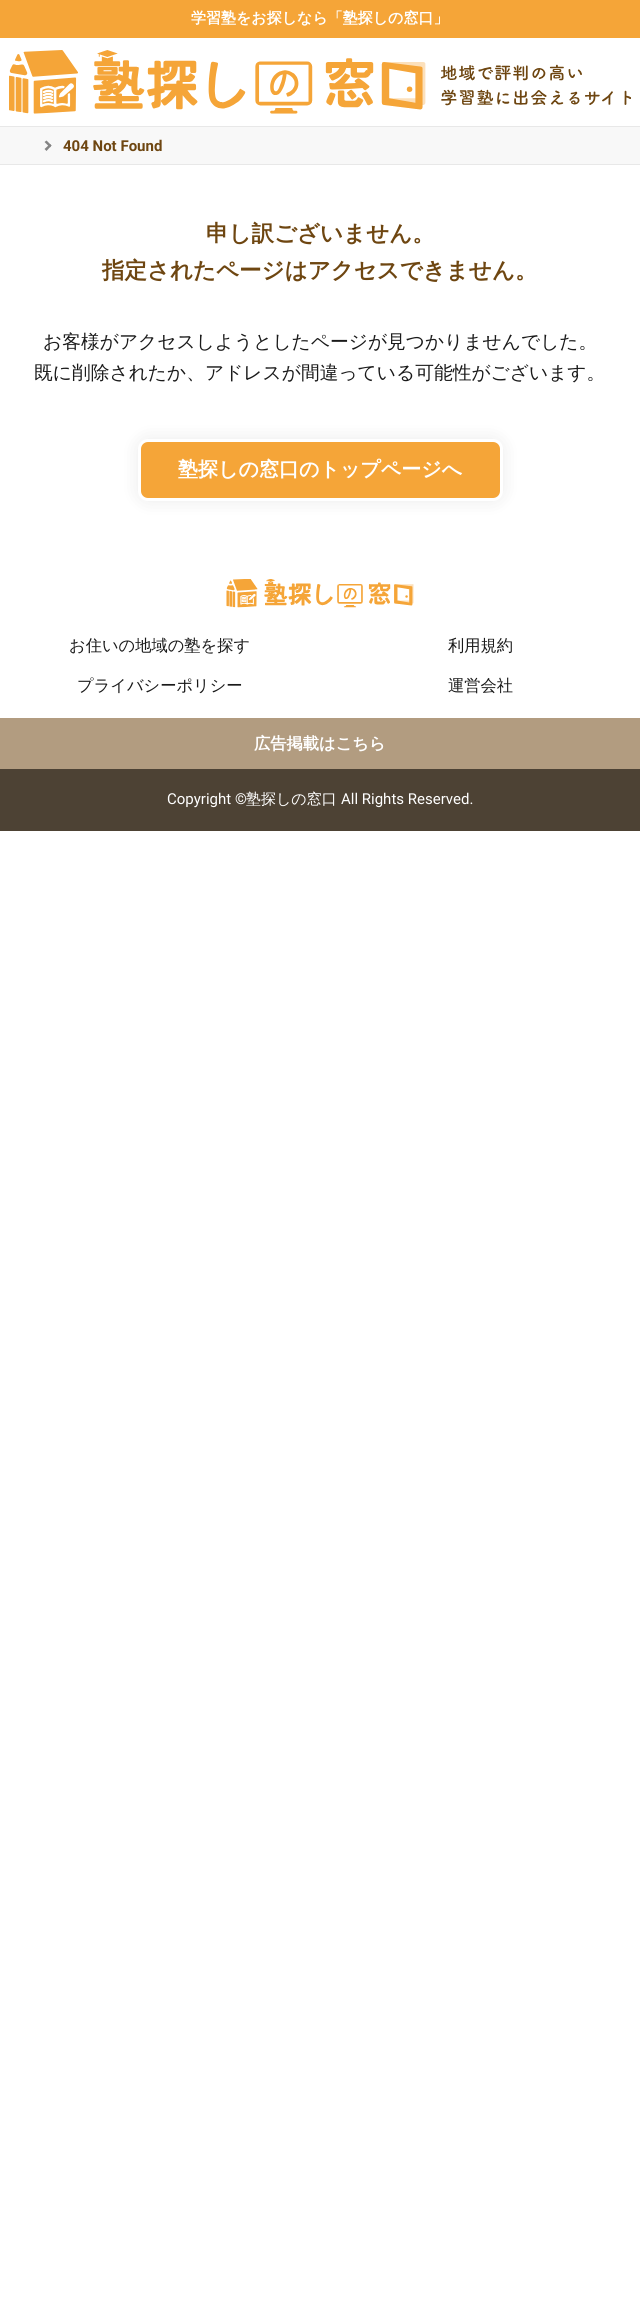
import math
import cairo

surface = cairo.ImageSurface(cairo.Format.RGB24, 640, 2303)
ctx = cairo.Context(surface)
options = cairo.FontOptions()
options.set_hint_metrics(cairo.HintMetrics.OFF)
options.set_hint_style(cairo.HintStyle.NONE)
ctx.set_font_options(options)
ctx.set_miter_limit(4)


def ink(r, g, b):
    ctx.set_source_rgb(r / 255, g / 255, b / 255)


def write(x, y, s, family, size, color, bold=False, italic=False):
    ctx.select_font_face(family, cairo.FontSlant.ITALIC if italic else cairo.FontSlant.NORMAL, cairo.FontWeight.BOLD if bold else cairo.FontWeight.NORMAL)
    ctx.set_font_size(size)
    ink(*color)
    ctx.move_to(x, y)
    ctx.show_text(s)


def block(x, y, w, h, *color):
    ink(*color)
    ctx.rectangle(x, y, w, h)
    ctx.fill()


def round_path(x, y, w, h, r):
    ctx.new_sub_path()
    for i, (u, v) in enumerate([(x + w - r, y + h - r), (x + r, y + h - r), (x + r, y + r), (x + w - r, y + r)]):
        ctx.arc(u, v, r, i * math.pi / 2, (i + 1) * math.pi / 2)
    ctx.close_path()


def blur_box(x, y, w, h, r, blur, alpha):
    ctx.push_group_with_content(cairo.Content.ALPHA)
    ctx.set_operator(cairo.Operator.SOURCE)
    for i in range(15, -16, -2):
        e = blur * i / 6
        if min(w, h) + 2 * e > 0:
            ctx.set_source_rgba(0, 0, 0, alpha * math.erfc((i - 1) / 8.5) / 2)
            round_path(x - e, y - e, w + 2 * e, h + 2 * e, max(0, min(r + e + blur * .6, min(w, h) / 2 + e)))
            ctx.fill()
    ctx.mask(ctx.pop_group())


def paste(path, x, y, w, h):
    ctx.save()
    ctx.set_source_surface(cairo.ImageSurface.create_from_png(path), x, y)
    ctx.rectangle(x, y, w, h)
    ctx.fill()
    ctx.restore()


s1 = dict(family="WenQuanYi Zen Hei", size=15, color=(255, 255, 255), bold=True)
s2 = dict(family="Roboto", size=15, color=(110, 70, 17), bold=True)
s3 = dict(family="WenQuanYi Zen Hei", size=22.5, color=(110, 70, 17), bold=True)
s4 = dict(family="WenQuanYi Zen Hei Medium", size=18.75, color=(26, 26, 26))
s5 = dict(family="WenQuanYi Zen Hei", size=20, color=(255, 255, 255), bold=True)
s6 = dict(family="WenQuanYi Zen Hei Medium", size=16.25, color=(26, 26, 26))
s7 = dict(family="WenQuanYi Zen Hei", size=16.25, color=(255, 255, 255), bold=True)
s8 = dict(family="Roboto", size=15, color=(255, 255, 255))
s9 = dict(family="WenQuanYi Zen Hei Medium", size=15, color=(255, 255, 255))

ink(255, 255, 255)
ctx.paint()
block(0, 0, 640, 38, 245, 165, 56)
write(191, 23, "学習塾をお探しなら「塾探しの窓口」", **s1)
paste("pic1.png", 9, 50, 622, 64)
block(0, 127, 640, 37, 248, 248, 248)
block(0, 126, 640, 1, 232, 232, 232)
block(0, 164, 640, 1, 232, 232, 232)
ink(132, 132, 132)
ctx.new_path()
ctx.move_to(46.5, 140.5)
ctx.line_to(51.5, 145.5)
ctx.line_to(50, 147.5)
ctx.line_to(44.5, 142)
ctx.close_path()
ctx.fill()
ctx.new_path()
ctx.move_to(50, 144)
ctx.line_to(51.5, 145.5)
ctx.line_to(46.5, 151)
ctx.line_to(44.5, 149)
ctx.close_path()
ctx.fill()
write(63, 151, "404 Not Found", **s2)
write(206, 241, "申し訳ございません。", **s3)
write(102, 278, "指定されたページはアクセスできません。", **s3)
write(43, 348, "お客様がアクセスしようとしたページが見つかりませんでした。", **s4)
write(34, 379, "既に削除されたか、アドレスが間違っている可能性がございます。", **s4)
ink(0, 0, 0)
blur_box(138, 439, 365, 62, 10, 9.5, 0.08)
ink(245, 165, 56)
round_path(139.5, 440.5, 362, 59, 8.5)
ctx.fill_preserve()
ink(255, 255, 255)
ctx.set_line_width(3)
ctx.stroke()
write(178, 476, "塾探しの窓口のトップページへ", **s5)
paste("pic2.png", 226, 579, 188, 29)
write(69, 651, "お住いの地域の塾を探す", **s6)
write(448, 651, "利用規約", **s6)
write(77, 691, "プライバシーポリシー", **s6)
write(448, 691, "運営会社", **s6)
block(0, 718, 640, 51, 178, 156, 128)
write(254, 749, "広告掲載はこちら", **s7)
block(0, 769, 640, 62, 77, 66, 52)
write(167, 804, "Copyright ©", **s8)
write(246, 804, "塾探しの窓口", **s9)
write(341, 804, "All Rights Reserved.", **s8)
surface.write_to_png("screenshot.png")
